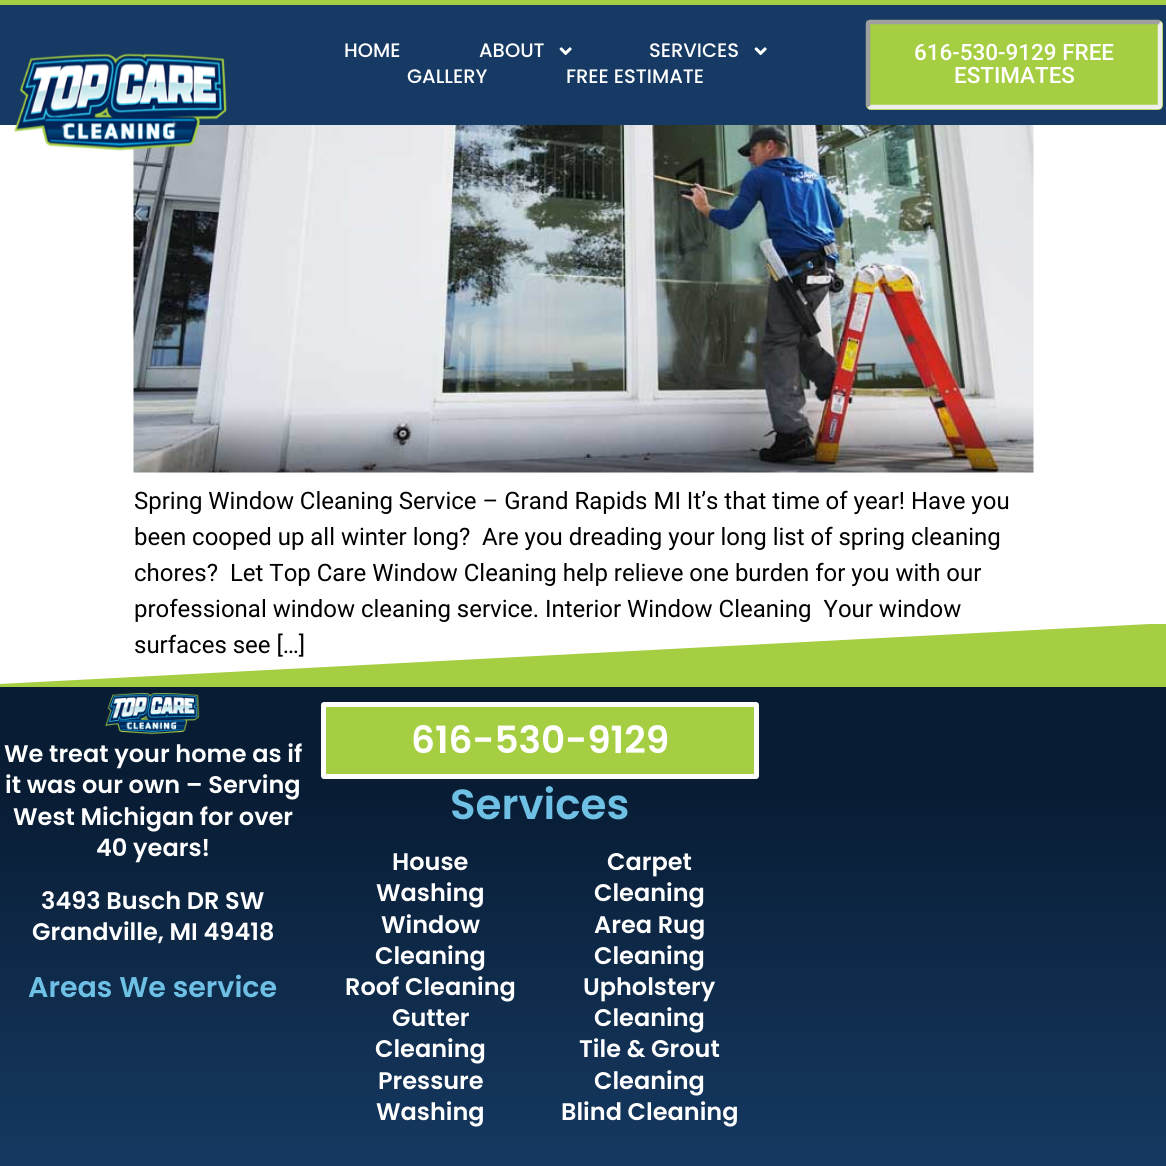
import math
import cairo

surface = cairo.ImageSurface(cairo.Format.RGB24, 1166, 1166)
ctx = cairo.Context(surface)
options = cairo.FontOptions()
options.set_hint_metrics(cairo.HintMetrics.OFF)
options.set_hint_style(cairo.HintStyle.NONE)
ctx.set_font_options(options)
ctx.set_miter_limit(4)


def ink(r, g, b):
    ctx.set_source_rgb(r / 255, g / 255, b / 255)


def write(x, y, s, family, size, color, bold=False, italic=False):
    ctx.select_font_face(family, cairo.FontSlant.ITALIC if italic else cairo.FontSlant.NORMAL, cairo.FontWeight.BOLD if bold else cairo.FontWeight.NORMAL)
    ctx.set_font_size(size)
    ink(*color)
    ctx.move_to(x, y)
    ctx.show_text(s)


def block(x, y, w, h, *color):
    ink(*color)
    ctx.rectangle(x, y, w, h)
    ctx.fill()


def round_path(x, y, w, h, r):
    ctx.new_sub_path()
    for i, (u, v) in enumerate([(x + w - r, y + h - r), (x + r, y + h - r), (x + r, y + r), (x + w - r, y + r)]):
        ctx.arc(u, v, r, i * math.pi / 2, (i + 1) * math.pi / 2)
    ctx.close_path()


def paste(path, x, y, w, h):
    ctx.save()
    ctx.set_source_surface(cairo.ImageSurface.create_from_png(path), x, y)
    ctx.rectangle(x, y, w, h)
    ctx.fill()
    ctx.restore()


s1 = dict(family="Poppins Medium", size=19.5, color=(255, 255, 255))
s2 = dict(family="Roboto Medium", size=22.5, color=(255, 255, 255))
s3 = dict(family="Roboto", size=24, color=(0, 0, 0))
s4 = dict(family="Poppins SemiBold", size=24, color=(255, 255, 255))
s5 = dict(family="Poppins SemiBold", size=28.5, color=(110, 193, 228))
s6 = dict(family="Poppins SemiBold", size=37.5, color=(255, 255, 255))
s7 = dict(family="Poppins SemiBold", size=42, color=(110, 193, 228))

ink(255, 255, 255)
ctx.paint()
block(0, 5, 1166, 120, 22, 58, 99)
block(0, 0, 1166, 5, 166, 206, 66)
paste("pic3.png", 133, 125, 901, 348)
paste("pic1.png", 14, 53, 213, 98)
write(344, 57, "HOME", **s1)
write(479, 57, "ABOUT", **s1)
paste("pic2.png", 559, 47, 13, 9)
write(649, 57, "SERVICES", **s1)
paste("pic2.png", 754, 47, 13, 9)
write(407, 83, "GALLERY", **s1)
write(566, 83, "FREE ESTIMATE", **s1)
ink(166, 206, 66)
round_path(866, 20, 297, 90, 5)
ctx.fill()
ctx.new_path()
ctx.move_to(1159.5, 22.5)
ctx.line_to(1160, 24)
ctx.line_to(1160, 105)
ctx.line_to(1159.5, 106.5)
ctx.line_to(1158, 107)
ctx.line_to(870, 107)
ctx.line_to(868.5, 106.5)
ink(238, 238, 238)
ctx.set_line_width(4.5)
ctx.stroke()
ctx.new_path()
ctx.move_to(868.5, 106.5)
ctx.line_to(868, 105)
ctx.line_to(868, 24)
ctx.line_to(868.5, 22.5)
ctx.line_to(870, 22)
ctx.line_to(1158, 22)
ctx.line_to(1159.5, 22.5)
ink(159, 159, 159)
ctx.stroke()
write(914, 60, "616-530-9129 FREE", **s2)
write(954, 83, "ESTIMATES", **s2)
write(134, 509, "Spring Window Cleaning Service – Grand Rapids MI It’s that time of year! Have you", **s3)
write(134, 545, "been cooped up all winter long?  Are you dreading your long list of spring cleaning", **s3)
write(134, 581, "chores?  Let Top Care Window Cleaning help relieve one burden for you with our", **s3)
write(134, 617, "professional window cleaning service. Interior Window Cleaning  Your window", **s3)
write(134, 653, "surfaces see […]", **s3)
ctx.save()
ctx.rectangle(0, 624, 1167, 65)
ctx.clip()
ink(166, 206, 66)
ctx.new_path()
ctx.move_to(-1, 684)
ctx.line_to(-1, 688)
ctx.line_to(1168, 688)
ctx.line_to(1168, 623)
ctx.close_path()
ctx.fill()
ctx.restore()
gradient = cairo.LinearGradient(584, 687, 584, 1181)
gradient.add_color_stop_rgba(0.19, 0.031, 0.11, 0.2, 1)
gradient.add_color_stop_rgba(1, 0.086, 0.227, 0.388, 1)
ctx.set_source(gradient)
ctx.rectangle(0, 687, 1166, 479)
ctx.fill()
paste("pic4.png", 105, 692, 95, 43)
write(4, 762, "We treat your home as if", **s4)
write(5, 793, "it was our own – Serving", **s4)
write(13, 825, "West Michigan for over", **s4)
write(96, 856, "40 years!", **s4)
write(41, 909, "3493 Busch DR SW", **s4)
write(32, 940, "Grandville, MI 49418", **s4)
write(28, 997, "Areas We service", **s5)
ink(166, 206, 66)
round_path(323.5, 704.5, 433, 72, 0.5)
ctx.fill_preserve()
ink(255, 255, 255)
ctx.set_line_width(5)
ctx.stroke()
write(411, 753, "616-530-9129", **s6)
write(450, 819, "Services", **s7)
write(392, 870, "House", **s4)
write(376, 901, "Washing", **s4)
write(381, 933, "Window", **s4)
write(375, 964, "Cleaning", **s4)
write(345, 995, "Roof Cleaning", **s4)
write(392, 1026, "Gutter", **s4)
write(375, 1057, "Cleaning", **s4)
write(378, 1089, "Pressure", **s4)
write(376, 1120, "Washing", **s4)
write(607, 870, "Carpet", **s4)
write(594, 901, "Cleaning", **s4)
write(594, 933, "Area Rug", **s4)
write(594, 964, "Cleaning", **s4)
write(583, 995, "Upholstery", **s4)
write(594, 1026, "Cleaning", **s4)
write(579, 1057, "Tile & Grout", **s4)
write(594, 1089, "Cleaning", **s4)
write(561, 1120, "Blind Cleaning", **s4)
surface.write_to_png("screenshot.png")
